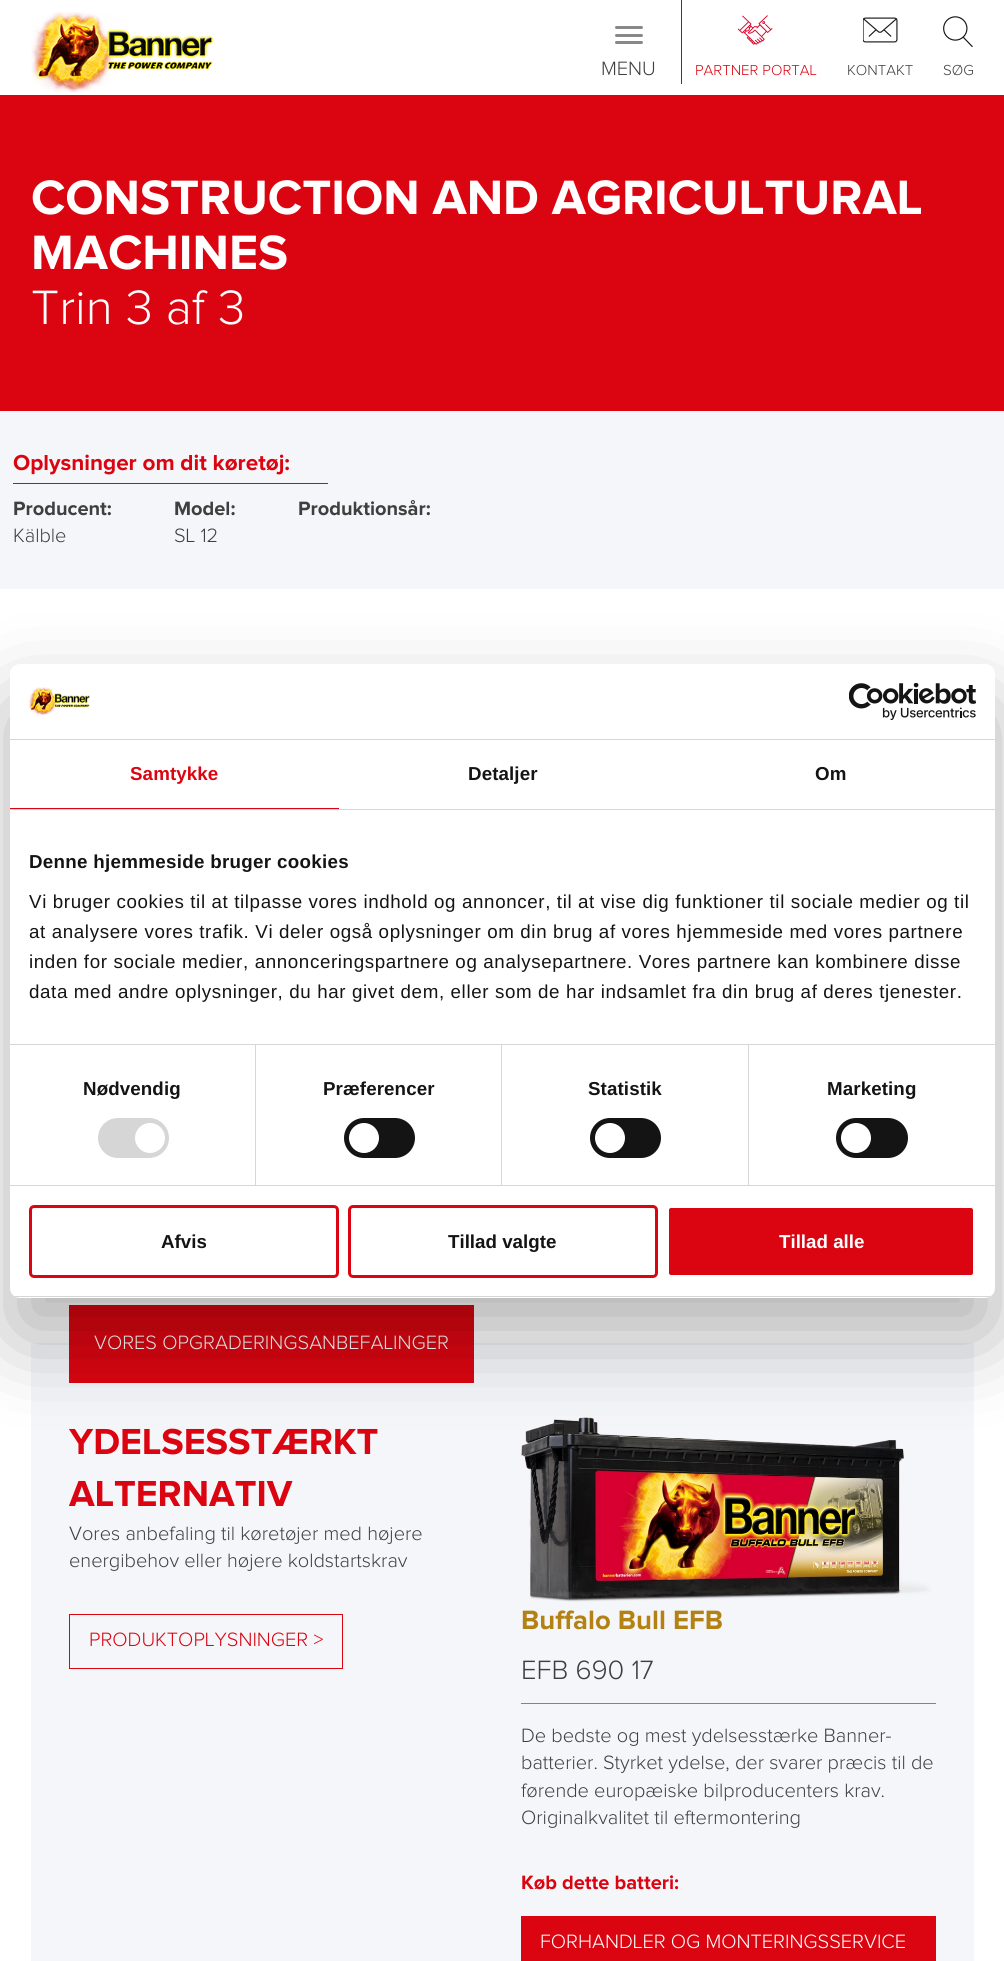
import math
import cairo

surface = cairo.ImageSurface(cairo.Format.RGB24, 1004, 1961)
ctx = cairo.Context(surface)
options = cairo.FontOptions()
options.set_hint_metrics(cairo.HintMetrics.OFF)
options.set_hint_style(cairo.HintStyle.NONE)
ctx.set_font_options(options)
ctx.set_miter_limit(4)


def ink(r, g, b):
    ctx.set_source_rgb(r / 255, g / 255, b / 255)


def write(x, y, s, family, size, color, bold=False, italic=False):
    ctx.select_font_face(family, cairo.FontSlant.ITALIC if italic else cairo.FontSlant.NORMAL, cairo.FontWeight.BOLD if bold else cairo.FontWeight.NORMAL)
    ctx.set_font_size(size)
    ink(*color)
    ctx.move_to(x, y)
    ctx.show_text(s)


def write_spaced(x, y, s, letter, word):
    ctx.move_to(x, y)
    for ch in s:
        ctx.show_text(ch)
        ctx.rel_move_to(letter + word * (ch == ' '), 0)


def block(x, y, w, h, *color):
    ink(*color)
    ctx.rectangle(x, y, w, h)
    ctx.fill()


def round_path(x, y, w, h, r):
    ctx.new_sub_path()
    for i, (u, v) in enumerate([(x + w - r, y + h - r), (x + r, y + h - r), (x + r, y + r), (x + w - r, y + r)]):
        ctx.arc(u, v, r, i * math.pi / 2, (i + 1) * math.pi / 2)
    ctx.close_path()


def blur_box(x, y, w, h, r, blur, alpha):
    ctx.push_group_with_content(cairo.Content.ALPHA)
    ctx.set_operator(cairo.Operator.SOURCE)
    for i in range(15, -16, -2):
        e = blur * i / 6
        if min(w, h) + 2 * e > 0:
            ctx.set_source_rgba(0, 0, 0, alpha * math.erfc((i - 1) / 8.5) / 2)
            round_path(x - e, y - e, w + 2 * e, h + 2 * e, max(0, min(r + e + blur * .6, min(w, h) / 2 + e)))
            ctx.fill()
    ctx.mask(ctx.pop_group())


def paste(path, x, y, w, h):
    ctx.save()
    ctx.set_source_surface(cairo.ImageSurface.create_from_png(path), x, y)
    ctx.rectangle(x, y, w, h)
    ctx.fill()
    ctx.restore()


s1 = dict(family="Proxima Nova Light", size=20, color=(63, 63, 63))
s2 = dict(family="Proxima Nova Light", size=15, color=(218, 5, 16))
s3 = dict(family="Proxima Nova Light", size=15, color=(63, 63, 63))
s4 = dict(family="Proxima Nova", size=50, color=(255, 255, 255), bold=True)
s5 = dict(family="Proxima Nova Light", size=50, color=(255, 255, 255))
s6 = dict(family="Proxima Nova", size=22.5, color=(218, 5, 16), bold=True)
s7 = dict(family="Proxima Nova", size=20, color=(63, 63, 63), bold=True)
s8 = dict(family="Proxima Nova Light", size=20, color=(255, 255, 255))
s9 = dict(family="Proxima Nova", size=37.5, color=(218, 5, 16), bold=True)
s10 = dict(family="Proxima Nova Light", size=20, color=(218, 5, 16))
s11 = dict(family="Proxima Nova", size=27.5, color=(180, 130, 19), bold=True)
s12 = dict(family="Proxima Nova Light", size=27.5, color=(63, 63, 63))
s13 = dict(family="Proxima Nova", size=20, color=(218, 5, 16), bold=True)
s14 = dict(family="Liberation Sans", size=18.75, color=(20, 20, 20), bold=True)
s15 = dict(family="Liberation Sans", size=18.75, color=(255, 255, 255), bold=True)

ink(255, 255, 255)
ctx.paint()
paste("pic1.png", 31, 12, 183, 81)
ink(136, 136, 136)
round_path(615, 26, 28, 3, 1.5)
ctx.fill()
round_path(615, 34, 28, 3, 1.5)
ctx.fill()
round_path(615, 41, 28, 3, 1.5)
ctx.fill()
write(601, 75, "MENU", **s1)
block(681, 0, 1, 84, 61, 61, 61)
paste("pic2.png", 738, 15, 35, 30)
write(695, 75, "PARTNER PORTAL", **s2)
paste("pic3.png", 863, 17, 35, 26)
write(847, 75, "KONTAKT", **s3)
paste("pic4.png", 943, 16, 30, 31)
write(943, 75, "SØG", **s3)
block(0, 95, 1004, 316, 218, 5, 16)
write(31, 214, "CONSTRUCTION AND AGRICULTURAL", **s4)
write(31, 269, "MACHINES", **s4)
write(31, 324, "Trin 3 af 3", **s5)
block(0, 411, 1004, 178, 245, 246, 250)
block(13, 483, 315, 1, 218, 5, 16)
write(13, 470, "Oplysninger om dit køretøj:", **s6)
write(13, 515, "Producent:", **s7)
write(13, 542, "Kälble", **s1)
write(174, 515, "Model:", **s7)
write(174, 542, "SL 12", **s1)
write(298, 515, "Produktionsår:", **s7)
block(31, 1343, 943, 618, 245, 246, 250)
block(69, 1305, 405, 78, 218, 5, 16)
write(94, 1349, "VORES OPGRADERINGSANBEFALINGER", **s8)
write(69, 1454, "YDELSESSTÆRKT", **s9)
write(69, 1506, "ALTERNATIV", **s9)
write(69, 1540, "Vores anbefaling til køretøjer med højere", **s1)
write(69, 1567, "energibehov eller højere koldstartskrav", **s1)
ctx.rectangle(69.5, 1614.5, 273, 54)
ink(218, 5, 16)
ctx.set_line_width(1)
ctx.stroke()
write(89, 1646, "PRODUKTOPLYSNINGER >", **s10)
paste("pic5.png", 521, 1417, 410, 185)
write(521, 1629, "Buffalo Bull EFB", **s11)
write(521, 1679, "EFB 690 17", **s12)
block(521, 1703, 415, 1, 180, 130, 19)
write(521, 1742, "De bedste og mest ydelsesstærke Banner-", **s1)
write(521, 1769, "batterier. Styrket ydelse, der svarer præcis til de", **s1)
write(521, 1797, "førende europæiske bilproducenters krav.", **s1)
write(521, 1824, "Originalkvalitet til eftermontering", **s1)
write(521, 1889, "Køb dette batteri:", **s13)
block(521, 1916, 415, 45, 218, 5, 16)
write(540, 1948, "FORHANDLER OG MONTERINGSSERVICE", **s8)
ink(0, 0, 0)
blur_box(10, 704, 985, 634, 10, 42.5, 0.3)
ink(255, 255, 255)
round_path(10, 664, 985, 634, 10)
ctx.fill()
block(10, 739, 985, 1, 214, 214, 214)
paste("pic6.png", 29, 687, 61, 28)
paste("pic7.png", 849, 683, 127, 37)
block(10, 809, 985, 1, 214, 214, 214)
block(10, 808, 329, 1, 218, 5, 16)
ctx.select_font_face("Liberation Sans", cairo.FontSlant.NORMAL, cairo.FontWeight.BOLD)
ctx.set_font_size(18.75)
write_spaced(130, 780, "Samtykke", 0.1, 0)
ink(20, 20, 20)
write_spaced(468, 780, "Detaljer", 0.1, 0)
write_spaced(815, 780, "Om", 0.1, 0)
block(10, 1044, 985, 1, 214, 214, 214)
ink(20, 20, 20)
write_spaced(29, 868, "Denne hjemmeside bruger cookies", 0.3, 0)
ctx.select_font_face("Liberation Sans")
write_spaced(29, 908, "Vi bruger cookies til at tilpasse vores indhold og annoncer, til at vise dig funktioner til sociale medier og til", 0.62, 0)
write_spaced(29, 938, "at analysere vores trafik. Vi deler også oplysninger om din brug af vores hjemmeside med vores partnere", 0.62, 0)
write_spaced(29, 968, "inden for sociale medier, annonceringspartnere og analysepartnere. Vores partnere kan kombinere disse", 0.62, 0)
write_spaced(29, 998, "data med andre oplysninger, du har givet dem, eller som de har indsamlet fra din brug af deres tjenester.", 0.62, 0)
block(10, 1185, 985, 1, 214, 214, 214)
block(255, 1045, 1, 140, 214, 214, 214)
ctx.select_font_face("Liberation Sans", cairo.FontSlant.NORMAL, cairo.FontWeight.BOLD)
ink(20, 20, 20)
write_spaced(83, 1095, "Nødvendig", 0.1, 0)
ink(214, 214, 214)
round_path(98, 1118, 71, 40, 20)
ctx.fill()
ink(255, 255, 255)
ctx.arc(150, 1138, 15, 0, 2 * math.pi)
ctx.fill()
block(501, 1045, 1, 140, 214, 214, 214)
ink(20, 20, 20)
write_spaced(323, 1095, "Præferencer", 0.1, 0)
round_path(344, 1118, 71, 40, 20)
ctx.fill()
ink(255, 255, 255)
ctx.arc(364, 1138, 15, 0, 2 * math.pi)
ctx.fill()
block(748, 1045, 1, 140, 214, 214, 214)
ink(20, 20, 20)
write_spaced(588, 1095, "Statistik", 0.1, 0)
round_path(590, 1118, 71, 40, 20)
ctx.fill()
ink(255, 255, 255)
ctx.arc(610, 1138, 15, 0, 2 * math.pi)
ctx.fill()
ink(20, 20, 20)
write_spaced(827, 1095, "Marketing", 0.1, 0)
round_path(836, 1118, 72, 40, 20)
ctx.fill()
ink(255, 255, 255)
ctx.arc(856, 1138, 15, 0, 2 * math.pi)
ctx.fill()
ctx.save()
round_path(10, 664, 985, 634, 10)
ctx.clip()
block(10, 1296, 985, 1, 214, 214, 214)
ctx.restore()
round_path(30.5, 1206.5, 307, 70, 3.5)
ink(218, 5, 16)
ctx.set_line_width(3)
ctx.stroke()
write(161, 1248, "Afvis", **s14)
round_path(349.5, 1206.5, 307, 70, 3.5)
ink(218, 5, 16)
ctx.stroke()
write(448, 1248, "Tillad valgte", **s14)
ink(218, 5, 16)
round_path(667.5, 1206.5, 307, 70, 3.5)
ctx.fill_preserve()
ink(255, 255, 255)
ctx.stroke()
write(779, 1248, "Tillad alle", **s15)
surface.write_to_png("screenshot.png")
